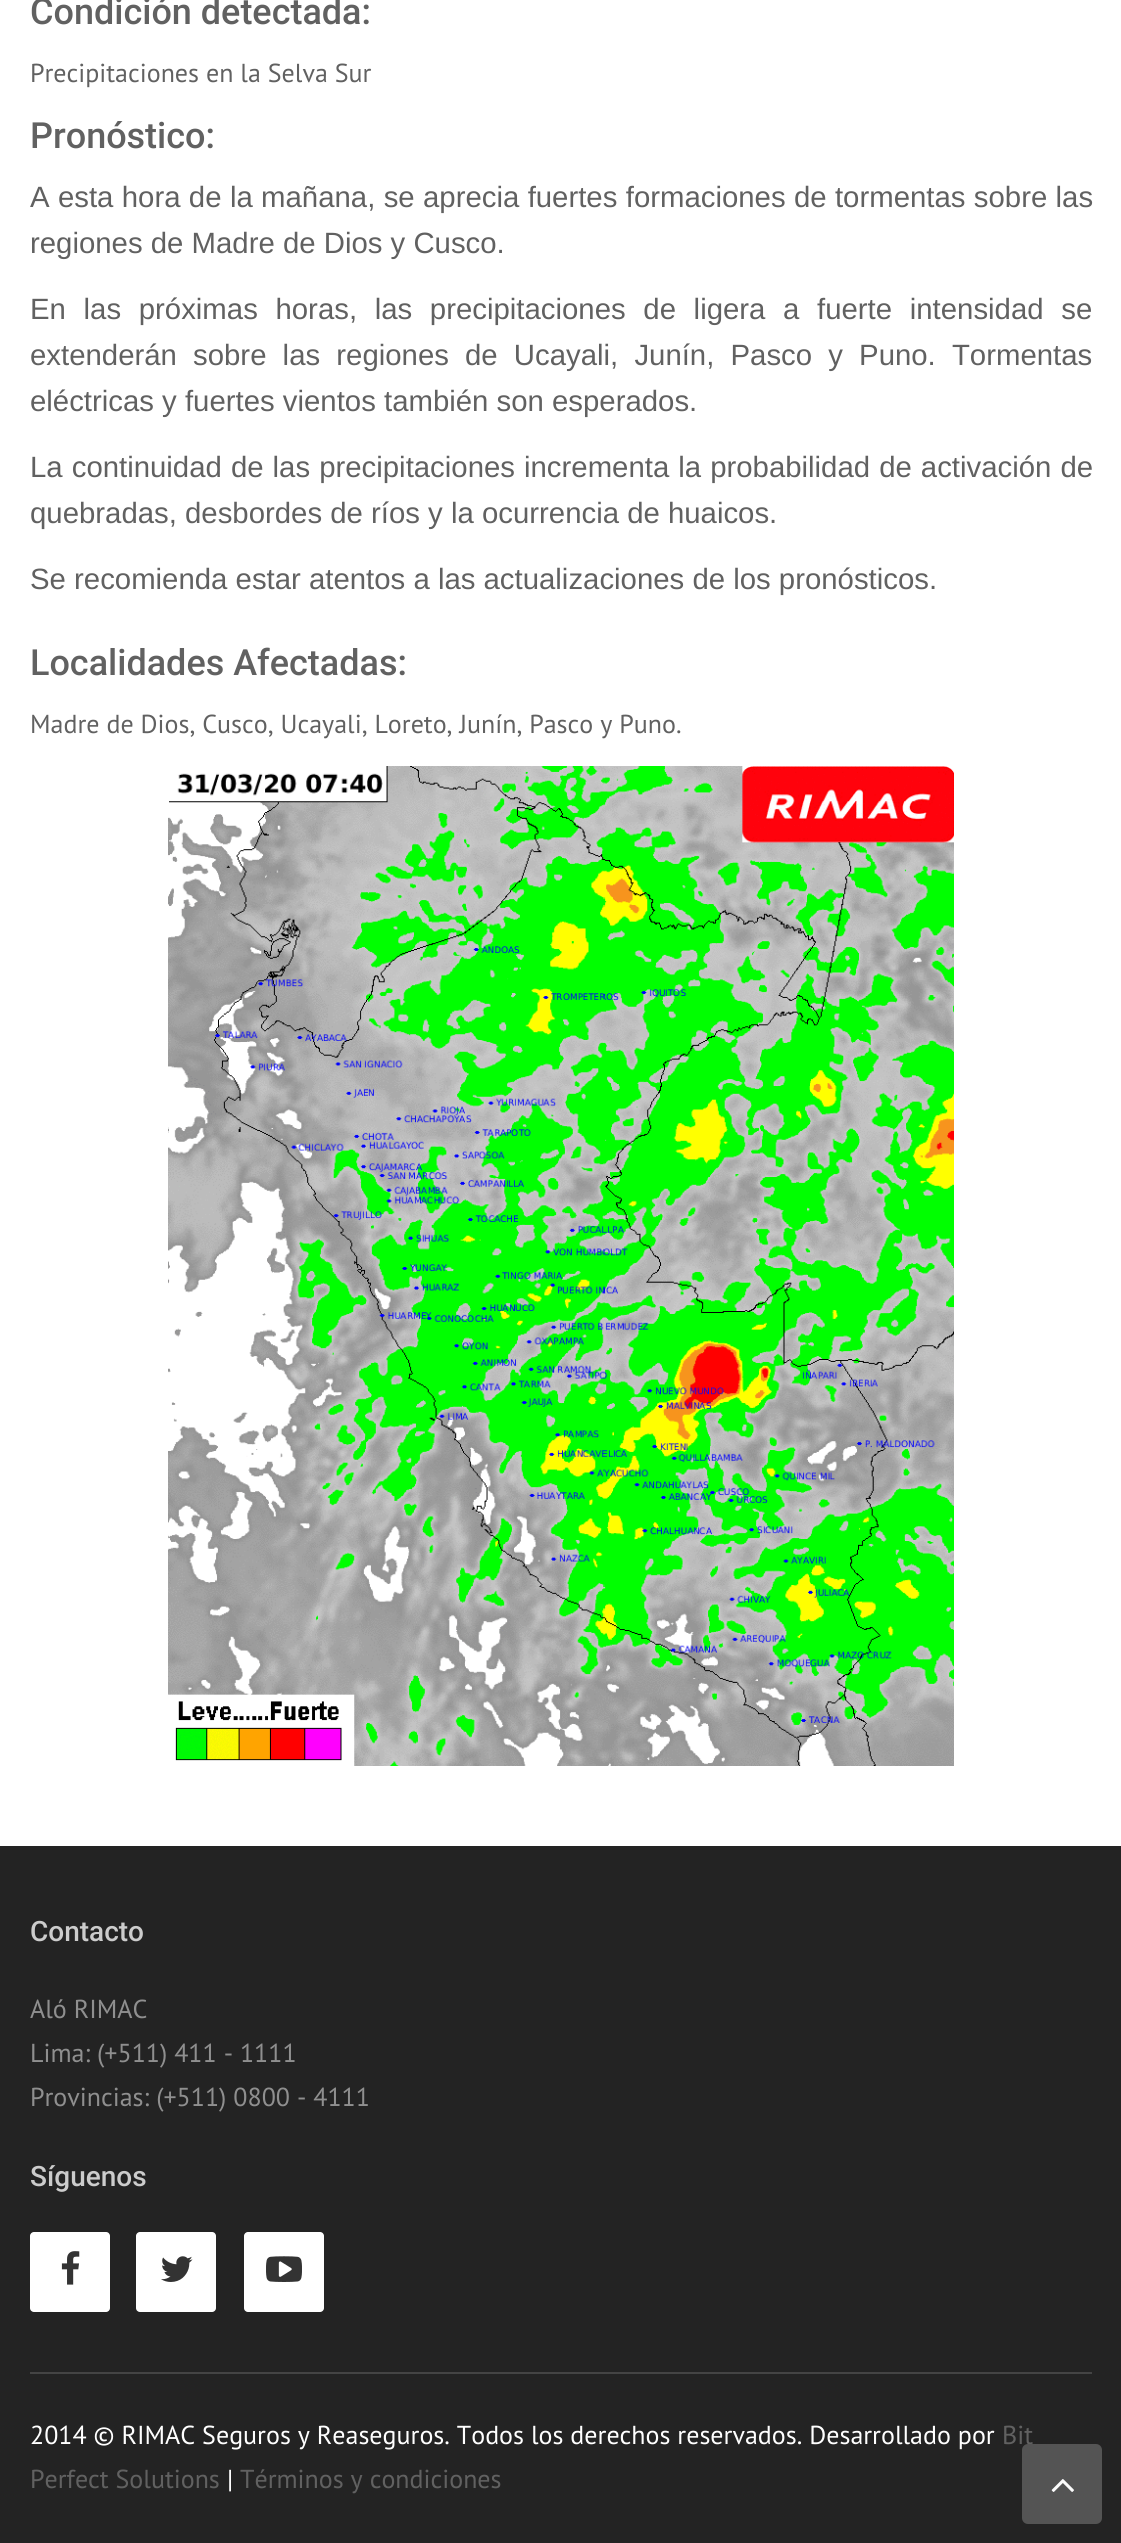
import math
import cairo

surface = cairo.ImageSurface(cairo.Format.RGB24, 1121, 2543)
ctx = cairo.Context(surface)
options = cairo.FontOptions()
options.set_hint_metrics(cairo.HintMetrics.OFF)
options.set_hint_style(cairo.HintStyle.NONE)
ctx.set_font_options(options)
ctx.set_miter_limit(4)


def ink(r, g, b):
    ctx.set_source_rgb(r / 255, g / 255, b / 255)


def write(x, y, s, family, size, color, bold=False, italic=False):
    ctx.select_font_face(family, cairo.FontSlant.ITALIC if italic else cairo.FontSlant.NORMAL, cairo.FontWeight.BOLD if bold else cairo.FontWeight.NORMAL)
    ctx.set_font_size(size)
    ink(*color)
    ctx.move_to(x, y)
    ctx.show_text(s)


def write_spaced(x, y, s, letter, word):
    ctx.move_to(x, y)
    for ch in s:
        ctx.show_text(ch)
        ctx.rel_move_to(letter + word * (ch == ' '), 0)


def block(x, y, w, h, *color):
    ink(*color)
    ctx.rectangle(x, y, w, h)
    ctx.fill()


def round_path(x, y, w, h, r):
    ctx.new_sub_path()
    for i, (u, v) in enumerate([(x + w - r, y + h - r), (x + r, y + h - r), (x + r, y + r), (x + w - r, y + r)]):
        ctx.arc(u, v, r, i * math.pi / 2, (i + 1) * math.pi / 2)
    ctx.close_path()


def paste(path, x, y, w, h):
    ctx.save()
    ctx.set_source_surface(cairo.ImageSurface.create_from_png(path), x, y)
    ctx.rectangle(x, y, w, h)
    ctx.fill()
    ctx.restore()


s1 = dict(family="Roboto Medium", size=36, color=(97, 97, 97))
s2 = dict(family="PT Sans", size=26, color=(97, 97, 97))
s3 = dict(family="Liberation Sans", size=29.35, color=(97, 97, 97))
s4 = dict(family="Roboto Medium", size=28, color=(204, 204, 204))
s5 = dict(family="PT Sans", size=26, color=(143, 143, 143))
s6 = dict(family="PT Sans", size=26, color=(255, 255, 255))

ink(255, 255, 255)
ctx.paint()
write(30, 24, "Condición detectada:", **s1)
write(30, 82, "Precipitaciones en la Selva Sur", **s2)
write(30, 148, "Pronóstico:", **s1)
ctx.select_font_face("Liberation Sans")
ctx.set_font_size(29.35)
write_spaced(30, 207, "A esta hora de la mañana, se aprecia fuertes formaciones de tormentas sobre las", 0, 0.2)
write(30, 253, "regiones de Madre de Dios y Cusco.", **s3)
write_spaced(30, 319, "En las próximas horas, las precipitaciones de ligera a fuerte intensidad se", 0, 9.5)
write_spaced(30, 365, "extenderán sobre las regiones de Ucayali, Junín, Pasco y Puno. Tormentas", 0, 8)
write(30, 411, "eléctricas y fuertes vientos también son esperados.", **s3)
write_spaced(30, 477, "La continuidad de las precipitaciones incrementa la probabilidad de activación de", 0, 0.9)
write(30, 523, "quebradas, desbordes de ríos y la ocurrencia de huaicos.", **s3)
write(30, 589, "Se recomienda estar atentos a las actualizaciones de los pronósticos.", **s3)
write(30, 675, "Localidades Afectadas:", **s1)
write(30, 733, "Madre de Dios, Cusco, Ucayali, Loreto, Junín, Pasco y Puno.", **s2)
paste("pic1.png", 168, 766, 786, 1000)
block(0, 1846, 1121, 697, 35, 35, 35)
write(30, 1941, "Contacto", **s4)
write(30, 2018, "Aló RIMAC", **s5)
write(30, 2062, "Lima: (+511) 411 - 1111", **s5)
write(30, 2106, "Provincias: (+511) 0800 - 4111", **s5)
write(30, 2186, "Síguenos", **s4)
ink(255, 255, 255)
round_path(30, 2232, 80, 80, 4)
ctx.fill()
paste("pic2.png", 61, 2251, 19, 34)
round_path(136, 2232, 80, 80, 4)
ctx.fill()
paste("pic3.png", 161, 2256, 32, 26)
round_path(244, 2232, 80, 80, 4)
ctx.fill()
paste("pic4.png", 266, 2256, 36, 26)
block(30, 2372, 1062, 2, 68, 68, 68)
write(30, 2444, "2014 © RIMAC Seguros y Reaseguros. Todos los derechos reservados. Desarrollado por", **s6)
write(1002, 2444, "Bit", **s2)
write(30, 2488, "Perfect Solutions", **s2)
write(227, 2488, "|", **s6)
write(240, 2488, "Términos y condiciones", **s2)
ctx.set_source_rgba(0.333, 0.333, 0.333, 0.98)
round_path(1022, 2444, 80, 80, 6)
ctx.fill()
paste("pic5.png", 1051, 2479, 23, 13)
surface.write_to_png("screenshot.png")
